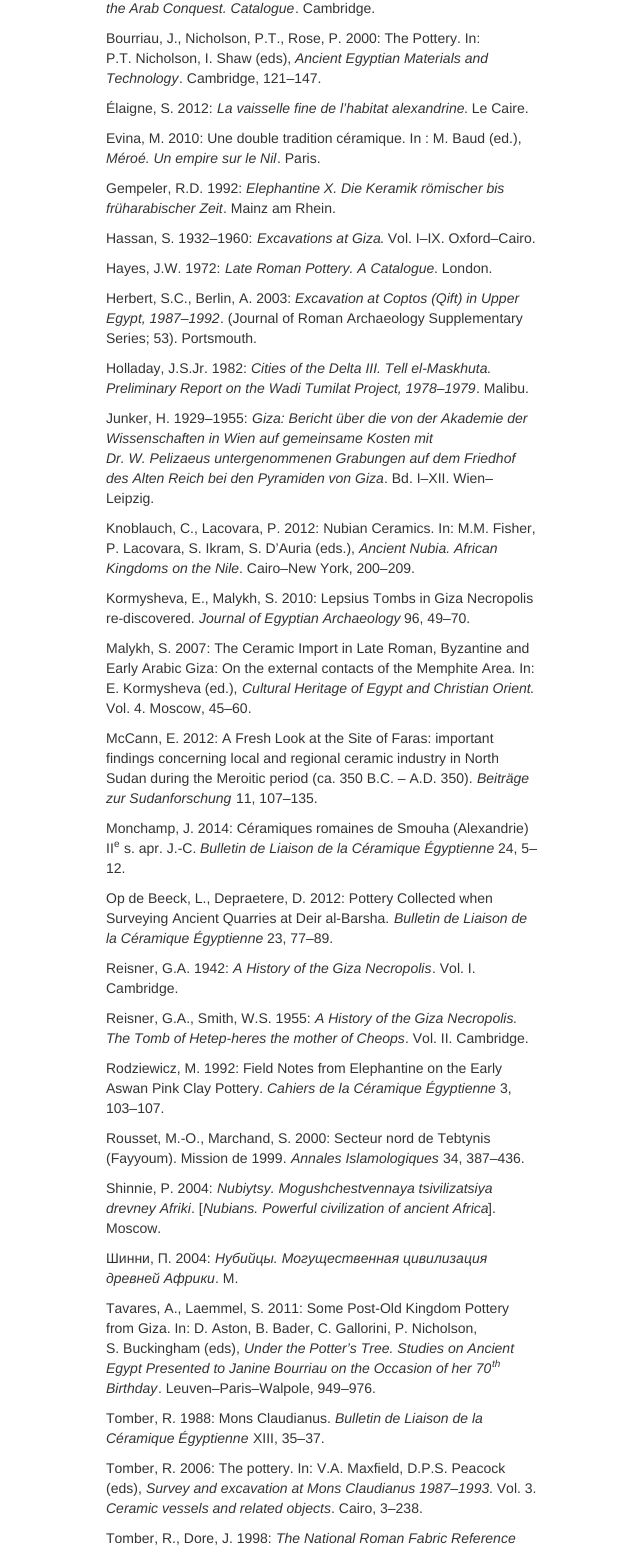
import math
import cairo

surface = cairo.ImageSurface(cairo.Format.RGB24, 644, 1560)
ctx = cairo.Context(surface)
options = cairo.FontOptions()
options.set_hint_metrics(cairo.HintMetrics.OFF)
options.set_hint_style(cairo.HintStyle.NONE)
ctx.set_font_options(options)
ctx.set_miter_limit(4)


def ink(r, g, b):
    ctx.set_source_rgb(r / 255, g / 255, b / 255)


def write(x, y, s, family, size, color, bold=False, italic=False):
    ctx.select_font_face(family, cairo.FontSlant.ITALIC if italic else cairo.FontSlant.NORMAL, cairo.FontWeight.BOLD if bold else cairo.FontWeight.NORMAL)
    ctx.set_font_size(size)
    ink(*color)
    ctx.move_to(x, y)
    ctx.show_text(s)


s1 = dict(family="Liberation Sans", size=14, color=(51, 51, 51), italic=True)
s2 = dict(family="Liberation Sans", size=14, color=(51, 51, 51))
s3 = dict(family="Liberation Sans", size=10, color=(51, 51, 51))
s4 = dict(family="Liberation Sans", size=10, color=(51, 51, 51), italic=True)

ink(255, 255, 255)
ctx.paint()
write(106, 13, "the Arab Conquest. Catalogue", **s1)
write(295, 13, ". Cambridge.", **s2)
write(106, 43, "Bourriau, J., Nicholson, P.T., Rose, P. 2000: The Pottery. In:", **s2)
write(106, 63, "P.T. Nicholson, I. Shaw (eds),", **s2)
write(295, 63, "Ancient Egyptian Materials and", **s1)
write(106, 83, "Technology", **s1)
write(179, 83, ". Cambridge, 121–147.", **s2)
write(106, 113, "Élaigne, S. 2012:", **s2)
write(217, 113, "La vaisselle fine de l’habitat alexandrine", **s1)
write(464, 113, ". Le Caire.", **s2)
write(106, 143, "Evina, M. 2010: Une double tradition céramique. In : M. Baud (ed.),", **s2)
write(106, 163, "Méroé. Un empire sur le Nil", **s1)
write(277, 163, ". Paris.", **s2)
write(106, 193, "Gempeler, R.D. 1992:", **s2)
write(246, 193, "Elephantine X. Die Keramik römischer bis", **s1)
write(106, 213, "früharabischer Zeit", **s1)
write(223, 213, ". Mainz am Rhein.", **s2)
write(106, 243, "Hassan, S. 1932–1960:", **s2)
write(257, 243, "Excavations at Giza", **s1)
write(380, 243, ". Vol. I–IX. Oxford–Cairo.", **s2)
write(106, 273, "Hayes, J.W. 1972:", **s2)
write(225, 273, "Late Roman Pottery. A Catalogue", **s1)
write(434, 273, ". London.", **s2)
write(106, 303, "Herbert, S.C., Berlin, A. 2003:", **s2)
write(295, 303, "Excavation at Coptos (Qift) in Upper", **s1)
write(106, 323, "Egypt, 1987–1992", **s1)
write(220, 323, ". (Journal of Roman Archaeology Supplementary", **s2)
write(106, 343, "Series; 53). Portsmouth.", **s2)
write(106, 373, "Holladay, J.S.Jr. 1982:", **s2)
write(251, 373, "Cities of the Delta III. Tell el-Maskhuta.", **s1)
write(106, 393, "Preliminary Report on the Wadi Tumilat Project, 1978–1979", **s1)
write(476, 393, ". Malibu.", **s2)
write(106, 423, "Junker, H. 1929–1955:", **s2)
write(252, 423, "Giza: Bericht über die von der Akademie der", **s1)
write(106, 443, "Wissenschaften in Wien auf gemeinsame Kosten mit", **s1)
write(106, 463, "Dr. W. Pelizaeus untergenommenen Grabungen auf dem Friedhof", **s1)
write(106, 483, "des Alten Reich bei den Pyramiden von Giza", **s1)
write(384, 483, ". Bd. I–XII. Wien–", **s2)
write(106, 503, "Leipzig.", **s2)
write(106, 533, "Knoblauch, C., Lacovara, P. 2012: Nubian Ceramics. In: M.M. Fisher,", **s2)
write(106, 553, "P. Lacovara, S. Ikram, S. D’Auria (eds.),", **s2)
write(359, 553, "Ancient Nubia. African", **s1)
write(106, 573, "Kingdoms on the Nile", **s1)
write(239, 573, ". Cairo–New York, 200–209.", **s2)
write(106, 603, "Kormysheva, E., Malykh, S. 2010: Lepsius Tombs in Giza Necropolis", **s2)
write(106, 623, "re-discovered.", **s2)
write(199, 623, "Journal of Egyptian Archaeology", **s1)
write(404, 623, "96, 49–70.", **s2)
write(106, 653, "Malykh, S. 2007: The Ceramic Import in Late Roman, Byzantine and", **s2)
write(106, 673, "Early Arabic Giza: On the external contacts of the Memphite Area. In:", **s2)
write(106, 693, "E. Kormysheva (ed.),", **s2)
write(242, 693, "Cultural Heritage of Egypt and Christian Orient", **s1)
write(530, 693, ".", **s2)
write(106, 713, "Vol. 4. Moscow, 45–60.", **s2)
write(106, 743, "McCann, E. 2012: A Fresh Look at the Site of Faras: important", **s2)
write(106, 763, "findings concerning local and regional ceramic industry in North", **s2)
write(106, 783, "Sudan during the Meroitic period (ca. 350 B.C. – A.D. 350).", **s2)
write(477, 783, "Beiträge", **s1)
write(106, 803, "zur Sudanforschung", **s1)
write(236, 803, "11, 107–135.", **s2)
write(106, 833, "Monchamp, J. 2014: Céramiques romaines de Smouha (Alexandrie)", **s2)
write(106, 853, "II", **s2)
write(114, 847, "e", **s3)
write(124, 853, "s. apr. J.-C.", **s2)
write(200, 853, "Bulletin de Liaison de la Céramique Égyptienne", **s1)
write(498, 853, "24, 5–", **s2)
write(106, 873, "12.", **s2)
write(106, 903, "Op de Beeck, L., Depraetere, D. 2012: Pottery Collected when", **s2)
write(106, 923, "Surveying Ancient Quarries at Deir al-Barsha.", **s2)
write(394, 923, "Bulletin de Liaison de", **s1)
write(106, 943, "la Céramique Égyptienne", **s1)
write(267, 943, "23, 77–89.", **s2)
write(106, 973, "Reisner, G.A. 1942:", **s2)
write(233, 973, "A History of the Giza Necropolis", **s1)
write(432, 973, ". Vol. I.", **s2)
write(106, 993, "Cambridge.", **s2)
write(106, 1023, "Reisner, G.A., Smith, W.S. 1955:", **s2)
write(315, 1023, "A History of the Giza Necropolis.", **s1)
write(106, 1043, "The Tomb of Hetep-heres the mother of Cheops", **s1)
write(405, 1043, ". Vol. II. Cambridge.", **s2)
write(106, 1073, "Rodziewicz, M. 1992: Field Notes from Elephantine on the Early", **s2)
write(106, 1093, "Aswan Pink Clay Pottery.", **s2)
write(267, 1093, "Cahiers de la Céramique Égyptienne", **s1)
write(500, 1093, "3,", **s2)
write(106, 1113, "103–107.", **s2)
write(106, 1143, "Rousset, M.-O., Marchand, S. 2000: Secteur nord de Tebtynis", **s2)
write(106, 1163, "(Fayyoum). Mission de 1999.", **s2)
write(291, 1163, "Annales Islamologiques", **s1)
write(443, 1163, "34, 387–436.", **s2)
write(106, 1193, "Shinnie, P. 2004:", **s2)
write(217, 1193, "Nubiytsy. Mogushchestvennaya tsivilizatsiya", **s1)
write(106, 1213, "drevney Afriki", **s1)
write(191, 1213, ". [", **s2)
write(203, 1213, "Nubians. Powerful civilization of ancient Africa", **s1)
write(488, 1213, "].", **s2)
write(106, 1233, "Moscow.", **s2)
write(106, 1263, "Шинни, П. 2004:", **s2)
write(215, 1263, "Нубийцы. Могущественная цивилизация", **s1)
write(106, 1283, "древней Африки", **s1)
write(215, 1283, ". М.", **s2)
write(106, 1313, "Tavares, A., Laemmel, S. 2011: Some Post-Old Kingdom Pottery", **s2)
write(106, 1333, "from Giza. In: D. Aston, B. Bader, C. Gallorini, P. Nicholson,", **s2)
write(106, 1353, "S. Buckingham (eds),", **s2)
write(244, 1353, "Under the Potter’s Tree. Studies on Ancient", **s1)
write(106, 1373, "Egypt Presented to Janine Bourriau on the Occasion of her 70", **s1)
write(492, 1367, "th", **s4)
write(106, 1393, "Birthday", **s1)
write(158, 1393, ". Leuven–Paris–Walpole, 949–976.", **s2)
write(106, 1423, "Tomber, R. 1988: Mons Claudianus.", **s2)
write(335, 1423, "Bulletin de Liaison de la", **s1)
write(106, 1443, "Céramique Égyptienne", **s1)
write(253, 1443, "XIII, 35–37.", **s2)
write(106, 1473, "Tomber, R. 2006: The pottery. In: V.A. Maxfield, D.P.S. Peacock", **s2)
write(106, 1493, "(eds),", **s2)
write(146, 1493, "Survey and excavation at Mons Claudianus 1987–1993", **s1)
write(489, 1493, ". Vol. 3.", **s2)
write(106, 1513, "Ceramic vessels and related objects", **s1)
write(331, 1513, ". Cairo, 3–238.", **s2)
write(106, 1543, "Tomber, R., Dore, J. 1998:", **s2)
write(276, 1543, "The National Roman Fabric Reference", **s1)
surface.write_to_png("screenshot.png")
